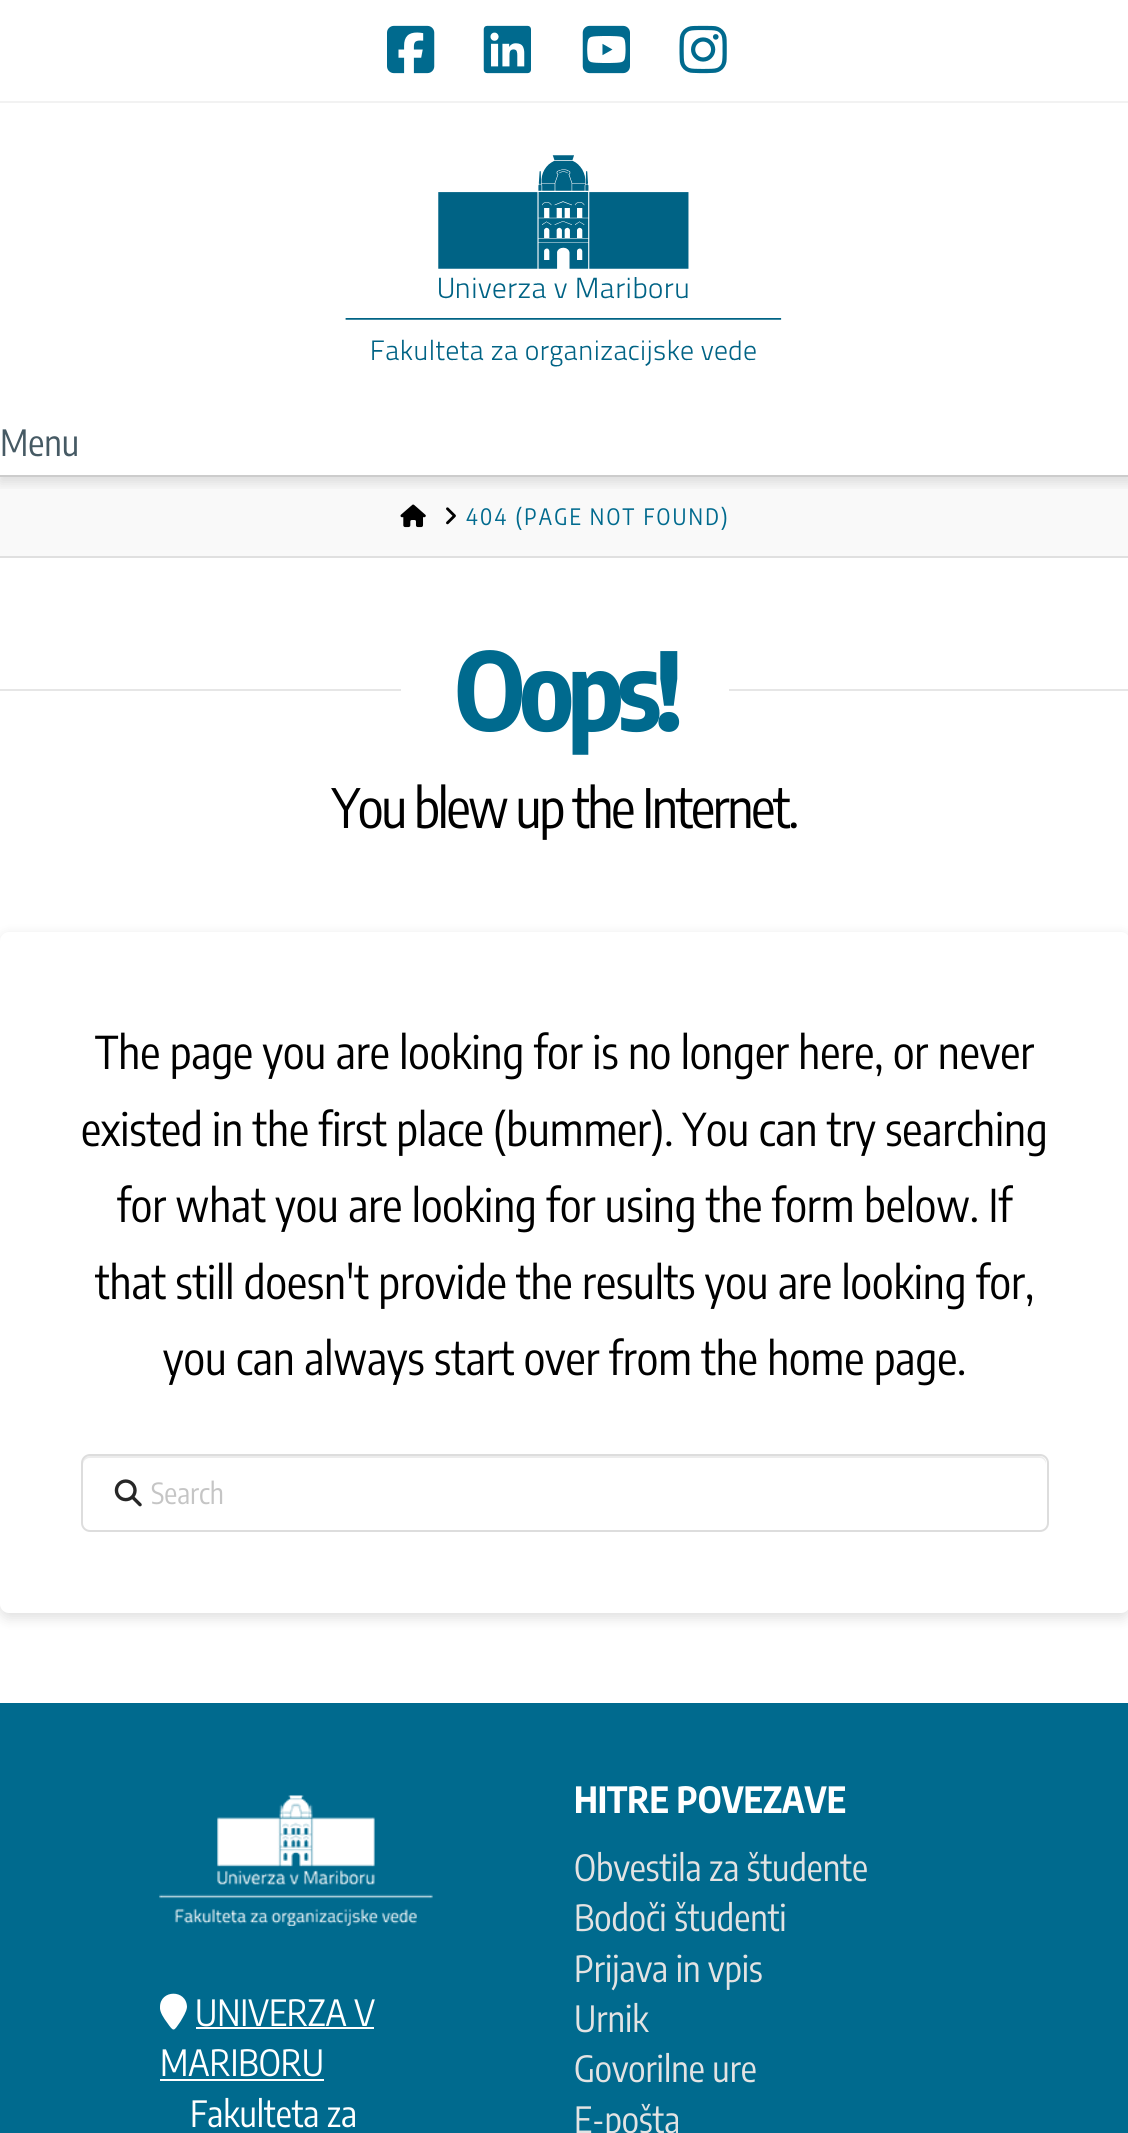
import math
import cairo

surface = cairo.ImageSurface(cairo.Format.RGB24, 1128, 2133)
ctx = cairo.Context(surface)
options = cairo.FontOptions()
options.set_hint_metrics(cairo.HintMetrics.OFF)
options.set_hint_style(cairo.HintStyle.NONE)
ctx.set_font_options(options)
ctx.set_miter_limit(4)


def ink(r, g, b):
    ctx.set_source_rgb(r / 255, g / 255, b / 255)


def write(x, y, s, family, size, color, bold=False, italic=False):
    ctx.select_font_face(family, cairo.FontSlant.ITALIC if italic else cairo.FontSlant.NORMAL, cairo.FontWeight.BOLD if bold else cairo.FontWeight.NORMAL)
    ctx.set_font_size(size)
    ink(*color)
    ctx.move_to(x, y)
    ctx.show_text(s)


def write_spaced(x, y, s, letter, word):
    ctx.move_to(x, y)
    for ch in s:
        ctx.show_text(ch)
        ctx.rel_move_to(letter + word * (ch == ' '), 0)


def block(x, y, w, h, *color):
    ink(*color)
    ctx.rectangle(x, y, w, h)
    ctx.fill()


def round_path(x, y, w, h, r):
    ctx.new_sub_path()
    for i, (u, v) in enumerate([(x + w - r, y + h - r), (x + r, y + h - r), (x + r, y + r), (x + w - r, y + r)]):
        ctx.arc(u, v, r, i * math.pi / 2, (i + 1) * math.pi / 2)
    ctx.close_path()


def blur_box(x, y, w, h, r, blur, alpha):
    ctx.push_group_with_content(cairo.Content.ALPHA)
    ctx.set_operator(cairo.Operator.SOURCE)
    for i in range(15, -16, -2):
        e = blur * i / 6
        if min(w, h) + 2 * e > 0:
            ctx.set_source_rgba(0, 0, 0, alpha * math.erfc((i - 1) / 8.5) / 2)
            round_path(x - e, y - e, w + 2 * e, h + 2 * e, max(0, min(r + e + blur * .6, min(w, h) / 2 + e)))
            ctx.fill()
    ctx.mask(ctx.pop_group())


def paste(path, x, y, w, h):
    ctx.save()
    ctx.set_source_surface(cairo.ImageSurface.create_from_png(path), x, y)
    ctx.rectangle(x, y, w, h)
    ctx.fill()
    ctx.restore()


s1 = dict(family="Encode Sans Condensed", size=36, color=(70, 90, 100))
s2 = dict(family="Encode Sans Condensed", size=45, color=(0, 0, 0))
s3 = dict(family="Encode Sans Condensed", size=29, color=(197, 197, 197))
s4 = dict(family="Encode Sans Condensed", size=36, color=(255, 255, 255))
s5 = dict(family="Encode Sans Condensed", size=36, color=(255, 255, 255), bold=True)
s6 = dict(family="Encode Sans Condensed", size=36, color=(227, 227, 227))

ink(255, 255, 255)
ctx.paint()
block(0, 477, 1128, 79, 249, 249, 249)
ctx.save()
ctx.rectangle(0, 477, 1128, 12)
ctx.clip()
ink(0, 0, 0)
blur_box(0, 108, 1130, 374, 0, 6.5, 0.13)
ctx.restore()
block(0, 99, 1128, 5, 255, 255, 255)
block(0, 101, 1128, 2, 242, 242, 242)
paste("pic1.png", 387, 25, 48, 49)
paste("pic2.png", 483, 25, 48, 49)
paste("pic3.png", 582, 25, 48, 49)
paste("pic4.png", 679, 25, 48, 49)
block(0, 475, 1128, 2, 204, 204, 204)
paste("pic5.png", 345, 155, 437, 212)
write(0, 456, "Menu", **s1)
block(0, 556, 1128, 2, 224, 224, 224)
paste("pic6.png", 400, 504, 26, 24)
paste("pic7.png", 446, 507, 10, 18)
ctx.set_font_size(22.5)
ink(0, 106, 142)
write_spaced(466, 525, "404 (PAGE NOT FOUND)", 2.25, 0)
block(0, 689, 401, 2, 230, 230, 230)
ctx.select_font_face("Encode Sans Condensed", cairo.FontSlant.NORMAL, cairo.FontWeight.BOLD)
ctx.set_font_size(108)
ink(0, 106, 142)
write_spaced(454, 731, "Oops!", -6.75, 0)
block(729, 689, 399, 2, 230, 230, 230)
ctx.select_font_face("Encode Sans Condensed")
ctx.set_font_size(54)
ink(0, 0, 0)
write_spaced(332, 828, "You blew up the Internet.", -2.25, 0)
ink(0, 0, 0)
blur_box(0, 936, 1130, 682, 9, 6.5, 0.13)
ink(255, 255, 255)
round_path(0, 932, 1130, 681, 9)
ctx.fill()
write(95, 1069, "The page you are looking for is no longer here, or never", **s2)
write(81, 1146, "existed in the first place (bummer). You can try searching", **s2)
write(117, 1222, "for what you are looking for using the form below. If", **s2)
write(95, 1299, "that still doesn't provide the results you are looking for,", **s2)
write(163, 1375, "you can always start over from the home page.", **s2)
ink(236, 236, 236)
ctx.new_path()
ctx.move_to(90, 1458)
ctx.line_to(1040, 1458)
ctx.curve_to(1043, 1458, 1046, 1461, 1046, 1465)
ctx.line_to(1046, 1463)
ctx.curve_to(1046, 1459, 1043, 1456, 1039, 1456)
ctx.line_to(90, 1456)
ctx.curve_to(86, 1456, 83, 1459, 83, 1463)
ctx.line_to(83, 1465)
ctx.curve_to(83, 1461, 86, 1458, 90, 1458)
ctx.close_path()
ctx.fill()
round_path(82, 1455, 966, 76, 8)
ink(221, 221, 221)
ctx.stroke()
paste("pic8.png", 114, 1479, 28, 28)
write(151, 1504, "Search", **s3)
block(0, 1703, 1128, 430, 0, 106, 142)
paste("pic9.png", 159, 1795, 274, 131)
ink(255, 255, 255)
ctx.new_path()
ctx.move_to(187, 2007)
ctx.curve_to(186.5, 2012, 183, 2017, 180.5, 2021.5)
ctx.curve_to(173.5, 2031.5, 174, 2032.5, 167, 2022.5)
ctx.curve_to(164, 2018.5, 159.5, 2012, 160, 2007)
ctx.curve_to(160, 1989.5, 186.5, 1989, 187, 2007)
ctx.close_path()
ctx.fill()
write(195, 2026, "UNIVERZA V", **s4)
block(196, 2027, 178, 2, 255, 255, 255)
write(160, 2076, "MARIBORU", **s4)
block(160, 2079, 164, 2, 255, 255, 255)
write(190, 2127, "Fakulteta za", **s4)
write(574, 1813, "HITRE POVEZAVE", **s5)
write(574, 1881, "Obvestila za študente", **s6)
write(574, 1931, "Bodoči študenti", **s6)
write(574, 1982, "Prijava in vpis", **s6)
write(574, 2032, "Urnik", **s6)
write(574, 2082, "Govorilne ure", **s6)
write(574, 2133, "E-pošta", **s6)
surface.write_to_png("screenshot.png")
